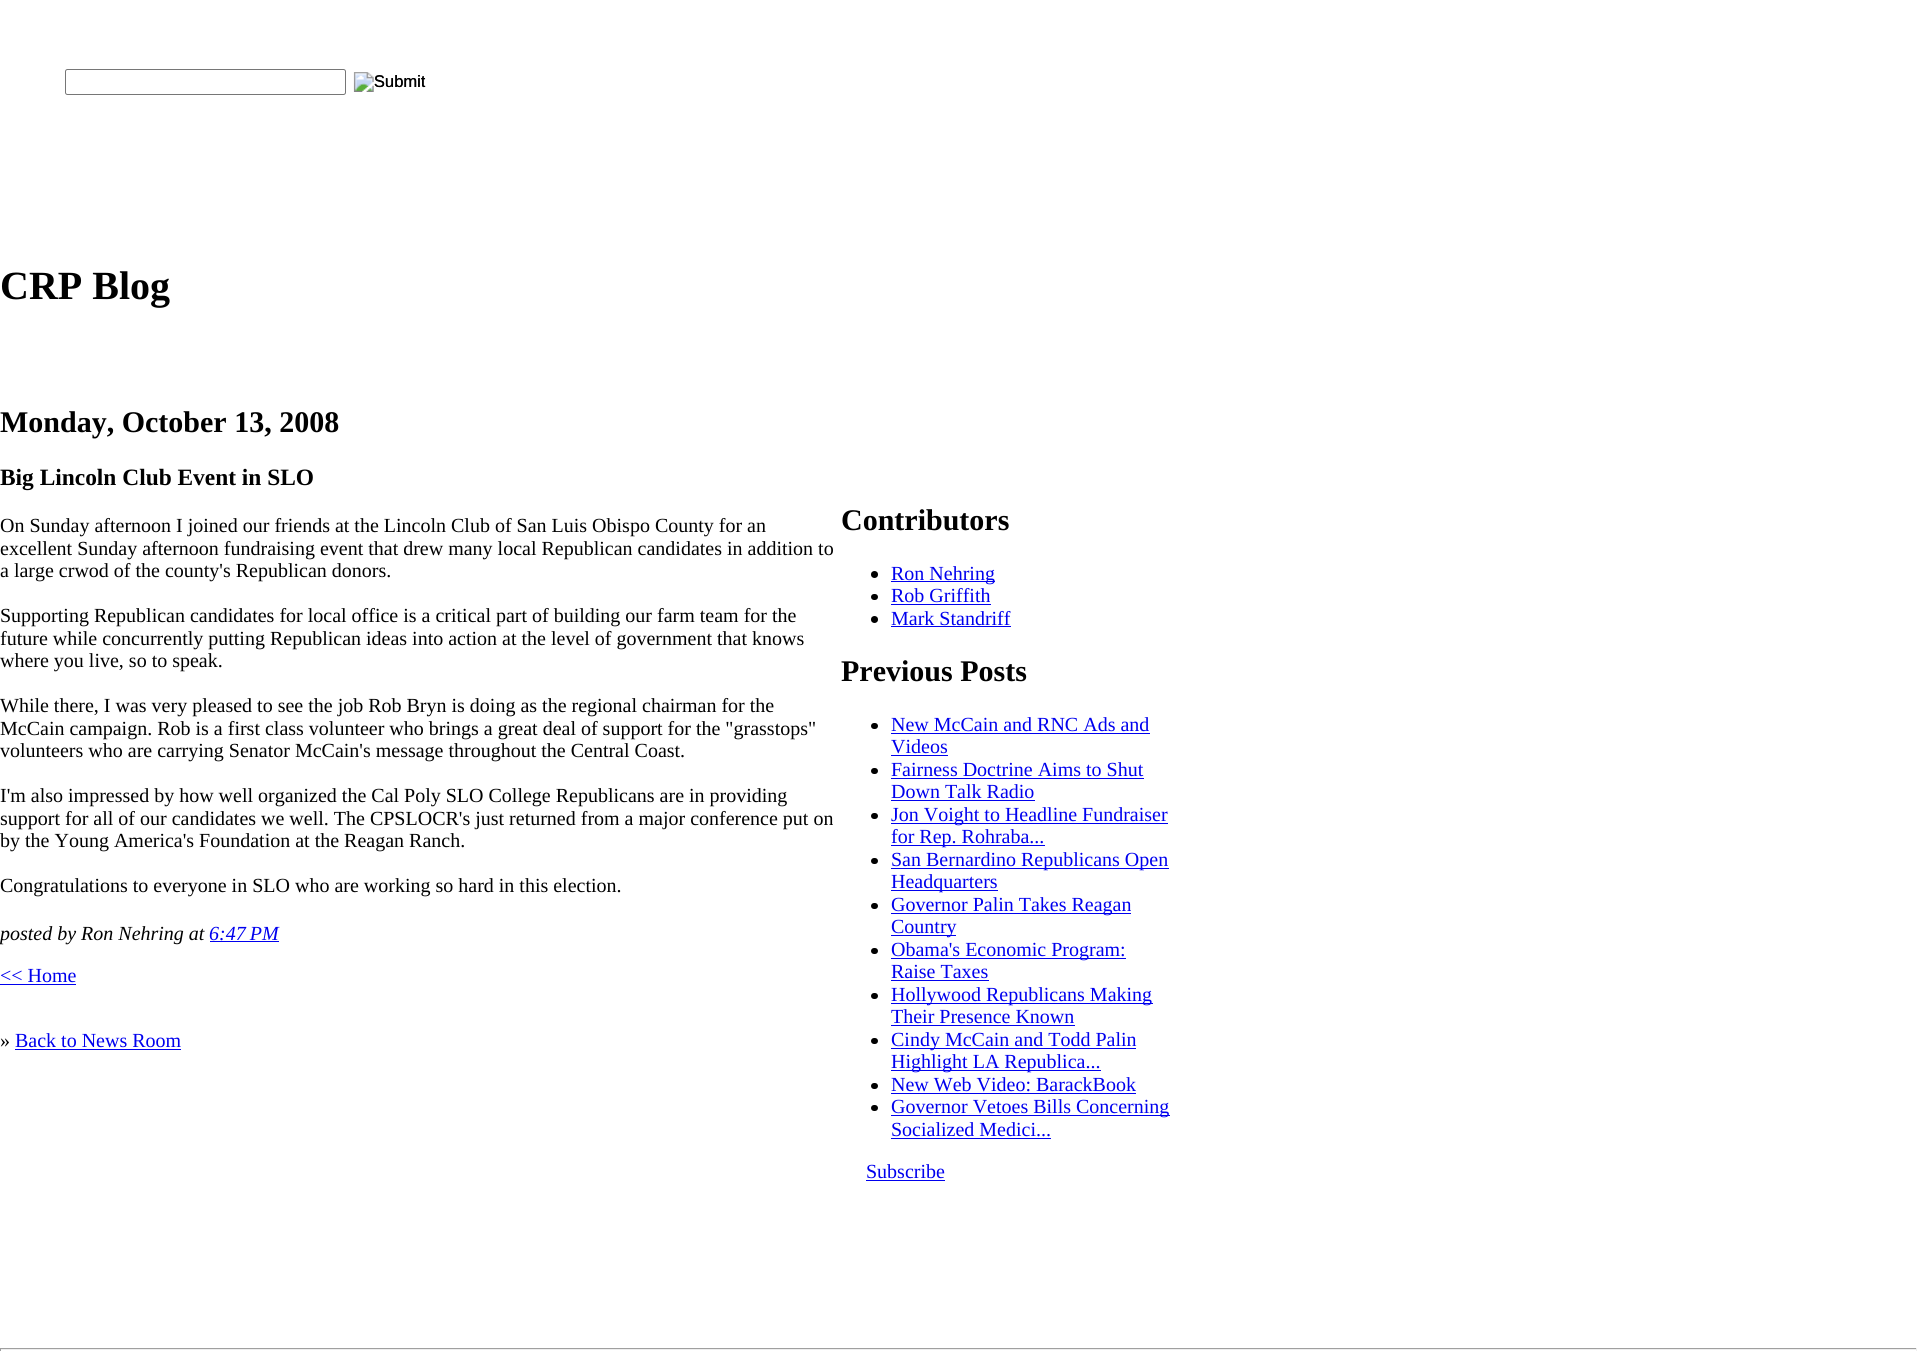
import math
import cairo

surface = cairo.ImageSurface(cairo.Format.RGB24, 1917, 1355)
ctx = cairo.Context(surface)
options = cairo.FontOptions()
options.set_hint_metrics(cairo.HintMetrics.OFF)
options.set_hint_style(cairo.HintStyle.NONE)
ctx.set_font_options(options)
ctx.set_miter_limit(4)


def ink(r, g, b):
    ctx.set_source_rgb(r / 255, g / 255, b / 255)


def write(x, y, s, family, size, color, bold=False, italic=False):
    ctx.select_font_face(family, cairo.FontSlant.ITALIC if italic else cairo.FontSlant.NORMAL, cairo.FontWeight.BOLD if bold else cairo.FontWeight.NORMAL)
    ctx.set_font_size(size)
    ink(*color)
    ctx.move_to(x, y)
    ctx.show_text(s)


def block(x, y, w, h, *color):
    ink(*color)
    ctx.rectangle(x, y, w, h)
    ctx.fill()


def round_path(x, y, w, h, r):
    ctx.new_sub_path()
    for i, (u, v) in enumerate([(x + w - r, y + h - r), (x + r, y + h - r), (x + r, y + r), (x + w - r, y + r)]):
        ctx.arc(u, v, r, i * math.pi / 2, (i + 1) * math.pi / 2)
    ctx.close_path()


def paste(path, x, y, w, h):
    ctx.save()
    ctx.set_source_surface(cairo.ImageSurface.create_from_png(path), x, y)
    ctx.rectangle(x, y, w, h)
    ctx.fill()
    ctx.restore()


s1 = dict(family="Liberation Sans", size=16.5, color=(0, 0, 0))
s2 = dict(family="Liberation Serif", size=40, color=(0, 0, 0), bold=True)
s3 = dict(family="Liberation Serif", size=30, color=(0, 0, 0), bold=True)
s4 = dict(family="Liberation Serif", size=23.4, color=(0, 0, 0), bold=True)
s5 = dict(family="Liberation Serif", size=20, color=(0, 0, 0))
s6 = dict(family="Liberation Serif", size=20, color=(0, 0, 0), italic=True)
s7 = dict(family="Liberation Serif", size=20, color=(0, 0, 238), italic=True)
s8 = dict(family="Liberation Serif", size=20, color=(0, 0, 238))

ink(255, 255, 255)
ctx.paint()
round_path(65.5, 69.5, 280, 25, 2)
ink(118, 118, 118)
ctx.set_line_width(1)
ctx.stroke()
paste("pic1.png", 353, 72, 72, 20)
write(374, 87, "Submit", **s1)
write(0, 299, "CRP Blog", **s2)
write(0, 432, "Monday, October 13, 2008", **s3)
write(0, 485, "Big Lincoln Club Event in SLO", **s4)
write(0, 532, "On Sunday afternoon I joined our friends at the Lincoln Club of San Luis Obispo County for an", **s5)
write(0, 555, "excellent Sunday afternoon fundraising event that drew many local Republican candidates in addition to", **s5)
write(0, 577, "a large crwod of the county's Republican donors.", **s5)
write(0, 622, "Supporting Republican candidates for local office is a critical part of building our farm team for the", **s5)
write(0, 645, "future while concurrently putting Republican ideas into action at the level of government that knows", **s5)
write(0, 667, "where you live, so to speak.", **s5)
write(0, 712, "While there, I was very pleased to see the job Rob Bryn is doing as the regional chairman for the", **s5)
write(0, 735, "McCain campaign. Rob is a first class volunteer who brings a great deal of support for the \"grasstops\"", **s5)
write(0, 757, "volunteers who are carrying Senator McCain's message throughout the Central Coast.", **s5)
write(0, 802, "I'm also impressed by how well organized the Cal Poly SLO College Republicans are in providing", **s5)
write(0, 825, "support for all of our candidates we well. The CPSLOCR's just returned from a major conference put on", **s5)
write(0, 847, "by the Young America's Foundation at the Reagan Ranch.", **s5)
write(0, 892, "Congratulations to everyone in SLO who are working so hard in this election.", **s5)
write(0, 940, "posted by Ron Nehring at", **s6)
write(209, 940, "6:47 PM", **s7)
block(210, 941, 69, 1, 0, 0, 238)
write(0, 982, "<< Home", **s8)
block(0, 984, 76, 1, 0, 0, 238)
write(0, 1047, "»", **s5)
write(15, 1047, "Back to News Room", **s8)
block(15, 1049, 166, 1, 0, 0, 238)
write(841, 530, "Contributors", **s3)
ctx.new_path()
ctx.arc(874.5, 574.5, 3.5, 0, 2 * math.pi)
ctx.fill()
block(891, 581, 104, 1, 0, 0, 238)
write(891, 580, "Ron Nehring", **s8)
ink(0, 0, 0)
round_path(871, 594, 7, 6, 3)
ctx.fill()
write(891, 602, "Rob Griffith", **s8)
block(891, 604, 100, 1, 0, 0, 238)
ink(0, 0, 0)
ctx.new_path()
ctx.arc(874.5, 619.5, 3.5, 0, 2 * math.pi)
ctx.fill()
write(891, 625, "Mark Standriff", **s8)
block(891, 626, 120, 1, 0, 0, 238)
write(841, 681, "Previous Posts", **s3)
round_path(871, 723, 7, 6, 3)
ctx.fill()
write(891, 731, "New McCain and RNC Ads and", **s8)
block(891, 733, 259, 1, 0, 0, 238)
write(891, 753, "Videos", **s8)
block(891, 755, 57, 1, 0, 0, 238)
ink(0, 0, 0)
round_path(871, 768, 7, 6, 3)
ctx.fill()
write(891, 776, "Fairness Doctrine Aims to Shut", **s8)
block(891, 778, 253, 1, 0, 0, 238)
write(891, 798, "Down Talk Radio", **s8)
block(891, 800, 144, 1, 0, 0, 238)
ink(0, 0, 0)
round_path(871, 813, 7, 6, 3)
ctx.fill()
block(891, 823, 277, 1, 0, 0, 238)
write(891, 821, "Jon Voight to Headline Fundraiser", **s8)
block(891, 845, 154, 1, 0, 0, 238)
write(891, 843, "for Rep. Rohraba...", **s8)
ink(0, 0, 0)
round_path(871, 858, 7, 6, 3)
ctx.fill()
block(891, 868, 278, 1, 0, 0, 238)
write(891, 866, "San Bernardino Republicans Open", **s8)
block(891, 890, 107, 1, 0, 0, 238)
write(891, 888, "Headquarters", **s8)
ink(0, 0, 0)
round_path(871, 903, 7, 6, 3)
ctx.fill()
block(891, 913, 240, 1, 0, 0, 238)
write(891, 911, "Governor Palin Takes Reagan", **s8)
block(891, 935, 65, 1, 0, 0, 238)
write(891, 933, "Country", **s8)
ink(0, 0, 0)
round_path(871, 948, 7, 6, 3)
ctx.fill()
block(891, 958, 235, 1, 0, 0, 238)
write(891, 956, "Obama's Economic Program:", **s8)
write(891, 978, "Raise Taxes", **s8)
block(891, 980, 98, 1, 0, 0, 238)
ink(0, 0, 0)
round_path(871, 993, 7, 6, 3)
ctx.fill()
block(891, 1003, 262, 1, 0, 0, 238)
write(891, 1001, "Hollywood Republicans Making", **s8)
write(891, 1023, "Their Presence Known", **s8)
block(891, 1025, 184, 1, 0, 0, 238)
ink(0, 0, 0)
round_path(871, 1038, 7, 6, 3)
ctx.fill()
block(891, 1048, 245, 1, 0, 0, 238)
write(891, 1046, "Cindy McCain and Todd Palin", **s8)
block(891, 1070, 210, 1, 0, 0, 238)
write(891, 1068, "Highlight LA Republica...", **s8)
ink(0, 0, 0)
round_path(871, 1083, 7, 6, 3)
ctx.fill()
write(891, 1091, "New Web Video: BarackBook", **s8)
block(891, 1093, 245, 1, 0, 0, 238)
ink(0, 0, 0)
round_path(871, 1105, 7, 6, 3)
ctx.fill()
block(891, 1115, 279, 1, 0, 0, 238)
write(891, 1113, "Governor Vetoes Bills Concerning", **s8)
write(891, 1136, "Socialized Medici...", **s8)
block(891, 1138, 160, 1, 0, 0, 238)
write(866, 1178, "Subscribe", **s8)
block(866, 1180, 79, 1, 0, 0, 238)
block(0, 1348, 1917, 1, 159, 159, 159)
block(1916, 1348, 1, 3, 238, 238, 238)
block(0, 1349, 1917, 1, 238, 238, 238)
block(0, 1348, 1, 3, 159, 159, 159)
surface.write_to_png("screenshot.png")
